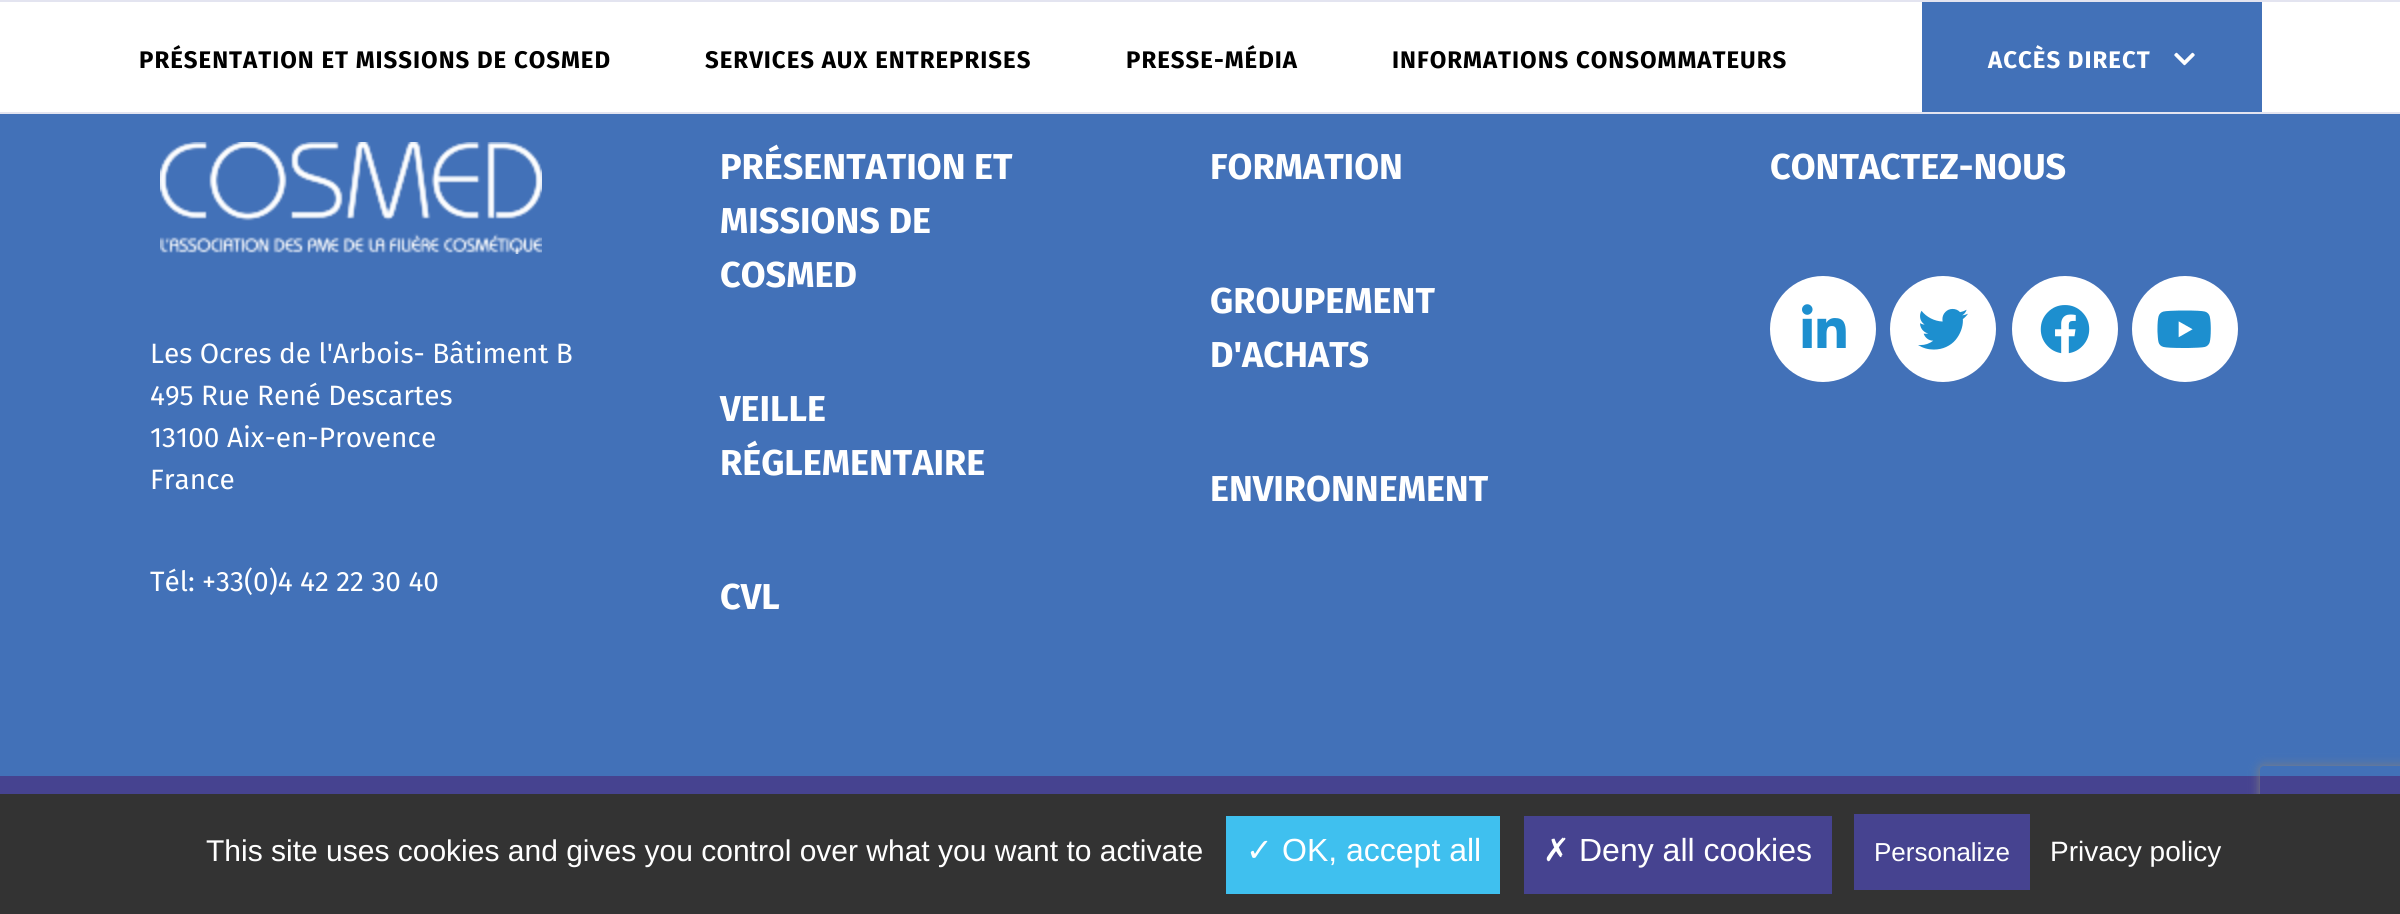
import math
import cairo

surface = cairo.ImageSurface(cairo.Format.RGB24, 2400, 914)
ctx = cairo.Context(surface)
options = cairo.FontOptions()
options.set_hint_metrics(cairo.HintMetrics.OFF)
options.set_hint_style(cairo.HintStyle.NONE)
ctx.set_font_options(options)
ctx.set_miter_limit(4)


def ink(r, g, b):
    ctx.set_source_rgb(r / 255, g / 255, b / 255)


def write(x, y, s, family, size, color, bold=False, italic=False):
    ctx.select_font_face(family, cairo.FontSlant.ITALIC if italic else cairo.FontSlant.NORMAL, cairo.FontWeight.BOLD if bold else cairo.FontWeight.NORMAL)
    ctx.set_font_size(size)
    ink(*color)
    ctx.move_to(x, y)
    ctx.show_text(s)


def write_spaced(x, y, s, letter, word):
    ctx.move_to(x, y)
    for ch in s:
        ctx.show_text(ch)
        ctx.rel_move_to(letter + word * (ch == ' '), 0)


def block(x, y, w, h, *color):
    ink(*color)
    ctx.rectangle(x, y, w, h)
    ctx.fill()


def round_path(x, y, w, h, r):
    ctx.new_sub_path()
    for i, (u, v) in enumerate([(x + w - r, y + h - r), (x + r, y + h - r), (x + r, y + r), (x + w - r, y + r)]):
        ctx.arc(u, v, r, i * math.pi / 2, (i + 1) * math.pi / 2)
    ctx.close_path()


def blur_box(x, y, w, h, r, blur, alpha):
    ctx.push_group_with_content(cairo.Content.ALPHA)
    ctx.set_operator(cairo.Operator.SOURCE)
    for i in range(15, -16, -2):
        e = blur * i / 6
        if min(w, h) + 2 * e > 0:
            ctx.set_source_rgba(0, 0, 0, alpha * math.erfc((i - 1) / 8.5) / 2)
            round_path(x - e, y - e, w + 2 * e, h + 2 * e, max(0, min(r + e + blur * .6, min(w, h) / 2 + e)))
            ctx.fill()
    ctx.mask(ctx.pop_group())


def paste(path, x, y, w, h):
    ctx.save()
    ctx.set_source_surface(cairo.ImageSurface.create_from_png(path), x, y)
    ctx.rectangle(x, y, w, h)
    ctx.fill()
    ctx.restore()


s1 = dict(family="Fira Sans", size=36, color=(255, 255, 255), bold=True)
s2 = dict(family="Fira Sans", size=28, color=(255, 255, 255))
s3 = dict(family="Liberation Sans", size=30, color=(255, 255, 255))
s4 = dict(family="DejaVu Sans", size=32, color=(255, 255, 255))
s5 = dict(family="Liberation Sans", size=32, color=(255, 255, 255))
s6 = dict(family="Liberation Sans", size=26, color=(255, 255, 255))
s7 = dict(family="Liberation Sans", size=28, color=(255, 255, 255))

ink(66, 113, 184)
ctx.paint()
block(0, 2, 2400, 110, 255, 255, 255)
block(0, 0, 2400, 2, 227, 228, 240)
block(0, 112, 2400, 2, 227, 228, 240)
ctx.select_font_face("Fira Sans", cairo.FontSlant.NORMAL, cairo.FontWeight.BOLD)
ctx.set_font_size(24)
ink(0, 0, 0)
write_spaced(139, 68, "PRÉSENTATION ET MISSIONS DE COSMED", 1, 0)
write_spaced(705, 68, "SERVICES AUX ENTREPRISES", 1, 0)
write_spaced(1126, 68, "PRESSE-MÉDIA", 1, 0)
write_spaced(1392, 68, "INFORMATIONS CONSOMMATEURS", 1, 0)
block(1922, 2, 340, 110, 66, 113, 184)
ink(255, 255, 255)
write_spaced(1988, 68, "ACCÈS DIRECT", 1, 0)
paste("pic1.png", 2174, 52, 21, 14)
write(720, 179, "PRÉSENTATION ET", **s1)
write(720, 233, "MISSIONS DE", **s1)
write(720, 287, "COSMED", **s1)
write(720, 421, "VEILLE", **s1)
write(720, 475, "RÉGLEMENTAIRE", **s1)
write(720, 609, "CVL", **s1)
write(1210, 179, "FORMATION", **s1)
write(1210, 313, "GROUPEMENT", **s1)
write(1210, 367, "D'ACHATS", **s1)
write(1210, 501, "ENVIRONNEMENT", **s1)
write(1770, 179, "CONTACTEZ-NOUS", **s1)
ctx.new_path()
ctx.arc(1823, 329, 53, 0, 2 * math.pi)
ctx.fill()
paste("pic2.png", 1802, 304, 44, 44)
ctx.arc(1943, 329, 53, 0, 2 * math.pi)
ctx.fill()
paste("pic3.png", 1918, 308, 50, 42)
ctx.arc(2065, 329, 53, 0, 2 * math.pi)
ctx.fill()
paste("pic4.png", 2040, 305, 50, 49)
ctx.arc(2185, 329, 53, 0, 2 * math.pi)
ctx.fill()
paste("pic5.png", 2157, 310, 54, 38)
paste("pic6.png", 160, 142, 382, 112)
write(150, 363, "Les Ocres de l'Arbois- Bâtiment B", **s2)
write(150, 405, "495 Rue René Descartes", **s2)
write(150, 447, "13100 Aix-en-Provence", **s2)
write(150, 489, "France", **s2)
write(150, 591, "Tél: +33(0)4 42 22 30 40", **s2)
block(0, 776, 2400, 18, 70, 67, 144)
ctx.save()
ctx.set_fill_rule(cairo.FillRule.EVEN_ODD)
ctx.new_path()
ctx.move_to(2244, 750)
ctx.line_to(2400, 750)
ctx.line_to(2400, 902)
ctx.line_to(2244, 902)
ctx.close_path()
ctx.move_to(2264, 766)
ctx.line_to(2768, 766)
ctx.curve_to(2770, 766, 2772, 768, 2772, 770)
ctx.line_to(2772, 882)
ctx.curve_to(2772, 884, 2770, 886, 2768, 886)
ctx.line_to(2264, 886)
ctx.curve_to(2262, 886, 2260, 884, 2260, 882)
ctx.line_to(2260, 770)
ctx.curve_to(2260, 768, 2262, 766, 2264, 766)
ctx.close_path()
ctx.clip()
ink(128, 128, 128)
blur_box(2260, 766, 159, 120, 4, 5, 1)
ctx.restore()
block(0, 794, 2400, 120, 51, 51, 51)
write(206, 861, "This site uses cookies and gives you control over what you want to activate", **s3)
block(1226, 816, 274, 78, 63, 192, 239)
write(1246, 861, "✓", **s4)
write(1282, 861, "OK, accept all", **s5)
block(1524, 816, 308, 78, 70, 67, 144)
write(1543, 861, "✗", **s4)
write(1579, 861, "Deny all cookies", **s5)
block(1854, 814, 176, 76, 70, 67, 144)
write(1874, 861, "Personalize", **s6)
write(2050, 861, "Privacy policy", **s7)
surface.write_to_png("screenshot.png")
